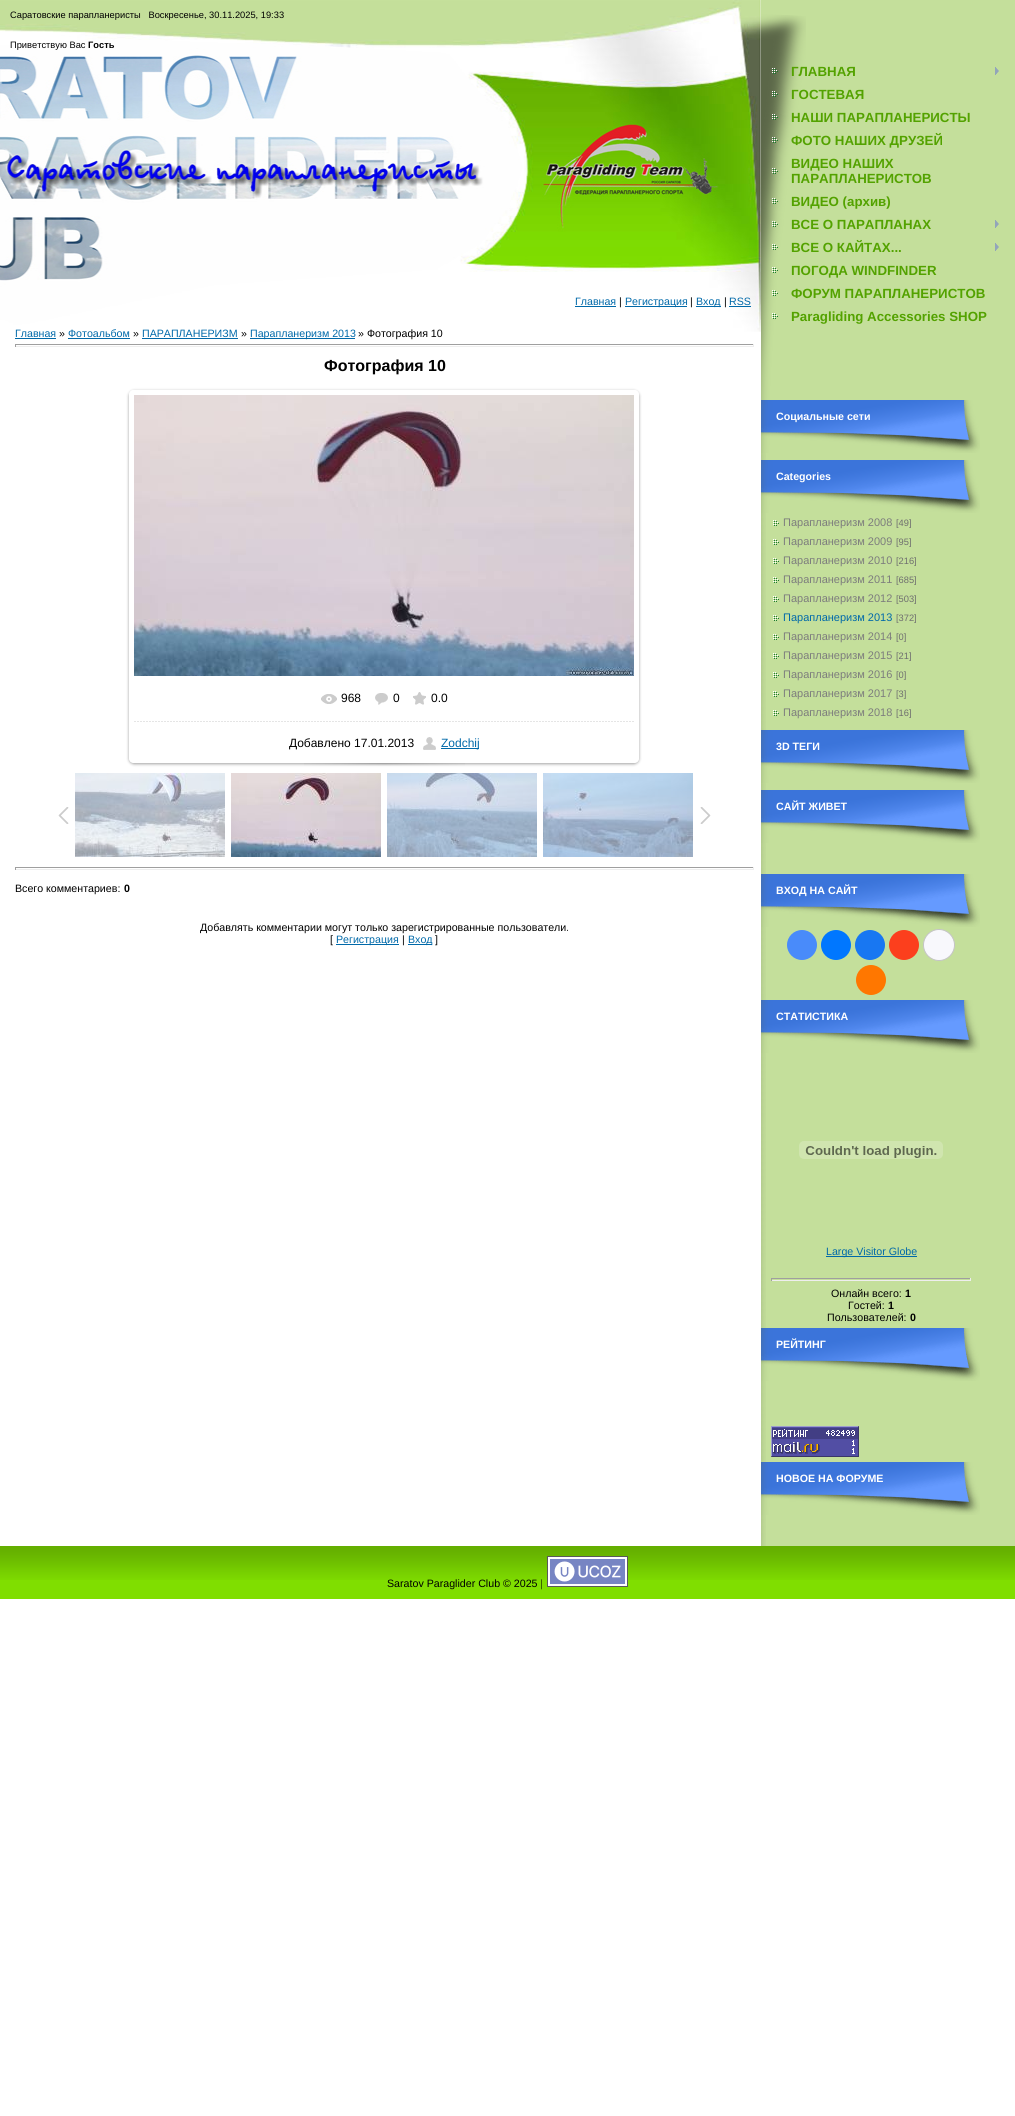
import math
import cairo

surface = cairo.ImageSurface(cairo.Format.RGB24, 1015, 2116)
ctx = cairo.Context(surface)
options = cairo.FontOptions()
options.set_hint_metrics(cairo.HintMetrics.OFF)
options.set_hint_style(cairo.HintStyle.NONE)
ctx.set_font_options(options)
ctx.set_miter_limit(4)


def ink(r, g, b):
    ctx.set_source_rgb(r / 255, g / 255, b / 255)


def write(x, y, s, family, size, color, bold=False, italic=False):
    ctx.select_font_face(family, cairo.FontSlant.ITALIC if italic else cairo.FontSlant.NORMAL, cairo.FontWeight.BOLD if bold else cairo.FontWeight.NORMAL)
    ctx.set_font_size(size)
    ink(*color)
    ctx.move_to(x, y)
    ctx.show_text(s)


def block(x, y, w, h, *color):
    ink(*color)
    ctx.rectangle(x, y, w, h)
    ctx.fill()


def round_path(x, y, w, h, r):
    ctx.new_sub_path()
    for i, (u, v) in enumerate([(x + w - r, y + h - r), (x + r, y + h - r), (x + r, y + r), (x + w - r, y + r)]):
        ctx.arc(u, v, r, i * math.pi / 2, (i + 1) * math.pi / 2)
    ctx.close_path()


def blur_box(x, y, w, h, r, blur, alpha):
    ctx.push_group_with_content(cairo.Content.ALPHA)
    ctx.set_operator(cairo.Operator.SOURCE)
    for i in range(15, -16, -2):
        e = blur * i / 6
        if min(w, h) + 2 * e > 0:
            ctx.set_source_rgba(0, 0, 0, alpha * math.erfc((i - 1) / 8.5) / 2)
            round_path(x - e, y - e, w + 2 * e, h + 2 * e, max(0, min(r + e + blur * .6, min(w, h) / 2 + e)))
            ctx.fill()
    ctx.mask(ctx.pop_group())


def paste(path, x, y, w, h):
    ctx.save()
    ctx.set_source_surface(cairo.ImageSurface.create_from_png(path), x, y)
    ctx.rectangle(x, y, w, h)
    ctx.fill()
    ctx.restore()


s1 = dict(family="Liberation Sans", size=9.3, color=(0, 0, 0))
s2 = dict(family="Liberation Sans", size=9.3, color=(0, 0, 0), bold=True)
s3 = dict(family="Liberation Sans", size=10.65, color=(0, 105, 169))
s4 = dict(family="Liberation Sans", size=10.65, color=(0, 0, 0))
s5 = dict(family="Liberation Sans", size=16, color=(0, 0, 0), bold=True)
s6 = dict(family="Liberation Sans", size=12, color=(0, 0, 0))
s7 = dict(family="Liberation Sans", size=12, color=(0, 105, 169))
s8 = dict(family="Liberation Sans", size=10.65, color=(0, 0, 0), bold=True)
s9 = dict(family="Liberation Sans", size=13.3, color=(83, 162, 0), bold=True)
s10 = dict(family="Liberation Sans", size=10.65, color=(255, 255, 255), bold=True)
s11 = dict(family="Liberation Sans", size=11, color=(125, 125, 125))
s12 = dict(family="Liberation Sans", size=9.3, color=(110, 110, 110))
s13 = dict(family="Liberation Sans", size=11, color=(0, 105, 169))

ink(255, 255, 255)
ctx.paint()
paste("pic1.png", 0, 0, 761, 332)
write(10, 18, "Саратовские парапланеристы   Воскресенье, 30.11.2025, 19:33", **s1)
write(10, 48, "Приветствую Вас", **s1)
write(88, 48, "Гость", **s2)
write(575, 305, "Главная", **s3)
block(575, 306, 41, 1, 0, 105, 169)
write(619, 305, "|", **s4)
block(625, 306, 62, 1, 0, 105, 169)
write(625, 305, "Регистрация", **s3)
write(690, 305, "|", **s4)
block(696, 306, 25, 1, 0, 105, 169)
write(696, 305, "Вход", **s3)
write(724, 305, "|", **s4)
write(729, 305, "RSS", **s3)
block(729, 306, 22, 1, 0, 105, 169)
write(15, 337, "Главная", **s3)
block(15, 338, 41, 1, 0, 105, 169)
write(59, 337, "»", **s4)
write(68, 337, "Фотоальбом", **s3)
block(68, 338, 62, 1, 0, 105, 169)
write(133, 337, "»", **s4)
write(142, 337, "ПАРАПЛАНЕРИЗМ", **s3)
block(142, 338, 96, 1, 0, 105, 169)
write(241, 337, "»", **s4)
block(250, 338, 105, 1, 0, 105, 169)
write(250, 337, "Парапланеризм 2013", **s3)
write(358, 337, "» Фотография 10", **s4)
block(15, 344, 739, 1, 159, 159, 159)
block(753, 344, 1, 3, 238, 238, 238)
block(15, 346, 739, 1, 238, 238, 238)
block(15, 344, 1, 3, 159, 159, 159)
write(324, 371, "Фотография 10", **s5)
ctx.save()
ctx.set_fill_rule(cairo.FillRule.EVEN_ODD)
ctx.new_path()
ctx.move_to(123, 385)
ctx.line_to(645, 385)
ctx.line_to(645, 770)
ctx.line_to(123, 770)
ctx.close_path()
ctx.move_to(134, 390)
ctx.line_to(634, 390)
ctx.curve_to(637, 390, 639, 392, 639, 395)
ctx.line_to(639, 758)
ctx.curve_to(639, 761, 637, 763, 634, 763)
ctx.line_to(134, 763)
ctx.curve_to(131, 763, 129, 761, 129, 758)
ctx.line_to(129, 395)
ctx.curve_to(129, 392, 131, 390, 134, 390)
ctx.close_path()
ctx.clip()
ink(0, 0, 0)
blur_box(129, 391, 510, 373, 5, 1.5, 0.37)
ctx.restore()
paste("pic2.png", 134, 395, 500, 281)
paste("pic3.png", 321, 694, 16, 10)
write(341, 702, "968", **s6)
paste("pic4.png", 375, 693, 13, 12)
write(393, 702, "0", **s6)
paste("pic5.png", 413, 692, 13, 13)
write(431, 702, "0.0", **s6)
paste("pic6.png", 134, 721, 500, 1)
write(289, 747, "Добавлено 17.01.2013", **s6)
paste("pic7.png", 423, 737, 13, 13)
block(441, 748, 38, 1, 0, 105, 169)
write(441, 747, "Zodchij", **s7)
paste("pic8.png", 304, 763, 161, 3)
paste("pic9.png", 58, 807, 11, 17)
paste("pic10.png", 75, 773, 150, 84)
paste("pic11.png", 231, 773, 150, 84)
paste("pic12.png", 387, 773, 150, 84)
paste("pic13.png", 543, 773, 150, 84)
paste("pic14.png", 700, 807, 11, 17)
block(15, 867, 739, 1, 159, 159, 159)
block(753, 867, 1, 3, 238, 238, 238)
block(15, 869, 739, 1, 238, 238, 238)
block(15, 867, 1, 3, 159, 159, 159)
write(15, 892, "Всего комментариев:", **s4)
write(124, 892, "0", **s8)
write(200, 931, "Добавлять комментарии могут только зарегистрированные пользователи.", **s4)
write(330, 943, "[", **s4)
block(336, 944, 63, 1, 0, 105, 169)
write(336, 943, "Регистрация", **s3)
write(402, 943, "|", **s4)
block(408, 944, 24, 1, 0, 105, 169)
write(408, 943, "Вход", **s3)
write(435, 943, "]", **s4)
block(766, 0, 249, 1546, 196, 223, 155)
paste("pic15.png", 761, 453, 5, 1093)
paste("pic16.png", 761, 0, 45, 400)
paste("pic17.png", 772, 68, 6, 6)
write(791, 76, "ГЛАВНАЯ", **s9)
paste("pic18.png", 995, 67, 4, 8)
paste("pic19.png", 772, 91, 6, 6)
write(791, 99, "ГОСТЕВАЯ", **s9)
paste("pic20.png", 772, 114, 6, 6)
write(791, 122, "НАШИ ПАРАПЛАНЕРИСТЫ", **s9)
paste("pic21.png", 772, 137, 6, 6)
write(791, 145, "ФОТО НАШИХ ДРУЗЕЙ", **s9)
paste("pic22.png", 772, 168, 6, 6)
write(791, 168, "ВИДЕО НАШИХ", **s9)
write(791, 183, "ПАРАПЛАНЕРИСТОВ", **s9)
paste("pic23.png", 772, 198, 6, 6)
write(791, 206, "ВИДЕО (архив)", **s9)
paste("pic24.png", 772, 221, 6, 6)
write(791, 229, "ВСЕ О ПАРАПЛАНАХ", **s9)
paste("pic25.png", 995, 220, 4, 8)
paste("pic26.png", 772, 244, 6, 6)
write(791, 252, "ВСЕ О КАЙТАХ...", **s9)
paste("pic25.png", 995, 243, 4, 8)
paste("pic27.png", 772, 267, 6, 6)
write(791, 275, "ПОГОДА WINDFINDER", **s9)
paste("pic28.png", 772, 290, 6, 6)
write(791, 298, "ФОРУМ ПАРАПЛАНЕРИСТОВ", **s9)
paste("pic29.png", 772, 313, 6, 6)
write(791, 321, "Paragliding Accessories SHOP", **s9)
paste("pic30.png", 761, 400, 219, 53)
write(776, 420, "Социальные сети", **s10)
paste("pic30.png", 761, 460, 219, 53)
write(776, 480, "Categories", **s10)
paste("pic31.png", 773, 520, 6, 6)
write(783, 526, "Парапланеризм 2008", **s11)
write(896, 526, "[49]", **s12)
paste("pic31.png", 773, 539, 6, 6)
write(783, 545, "Парапланеризм 2009", **s11)
write(896, 545, "[95]", **s12)
paste("pic31.png", 773, 558, 6, 6)
write(783, 564, "Парапланеризм 2010", **s11)
write(896, 564, "[216]", **s12)
paste("pic31.png", 773, 577, 6, 6)
write(783, 583, "Парапланеризм 2011", **s11)
write(896, 583, "[685]", **s12)
paste("pic31.png", 773, 596, 6, 6)
write(783, 602, "Парапланеризм 2012", **s11)
write(896, 602, "[503]", **s12)
paste("pic31.png", 773, 615, 6, 6)
write(783, 621, "Парапланеризм 2013", **s13)
write(896, 621, "[372]", **s12)
paste("pic31.png", 773, 634, 6, 6)
write(783, 640, "Парапланеризм 2014", **s11)
write(896, 640, "[0]", **s12)
paste("pic31.png", 773, 653, 6, 6)
write(783, 659, "Парапланеризм 2015", **s11)
write(896, 659, "[21]", **s12)
paste("pic31.png", 773, 672, 6, 6)
write(783, 678, "Парапланеризм 2016", **s11)
write(896, 678, "[0]", **s12)
paste("pic31.png", 773, 691, 6, 6)
write(783, 697, "Парапланеризм 2017", **s11)
write(896, 697, "[3]", **s12)
paste("pic31.png", 773, 710, 6, 6)
write(783, 716, "Парапланеризм 2018", **s11)
write(896, 716, "[16]", **s12)
paste("pic30.png", 761, 730, 219, 53)
write(776, 750, "3D ТЕГИ", **s10)
paste("pic30.png", 761, 790, 219, 53)
write(776, 810, "САЙТ ЖИВЕТ", **s10)
paste("pic30.png", 761, 874, 219, 53)
write(776, 894, "ВХОД НА САЙТ", **s10)
ink(73, 139, 250)
ctx.new_path()
ctx.arc(802, 945, 15, 0, 2 * math.pi)
ctx.fill()
ink(0, 119, 255)
ctx.arc(836, 945, 15, 0, 2 * math.pi)
ctx.fill()
ink(24, 119, 242)
ctx.arc(870, 945, 15, 0, 2 * math.pi)
ctx.fill()
ink(252, 63, 29)
ctx.arc(904, 945, 15, 0, 2 * math.pi)
ctx.fill()
ink(248, 248, 252)
ctx.arc(939, 945, 15.5, 0, 2 * math.pi)
ctx.fill_preserve()
ink(196, 196, 196)
ctx.set_line_width(1)
ctx.stroke()
ink(255, 119, 0)
ctx.arc(871, 980, 15, 0, 2 * math.pi)
ctx.fill()
paste("pic30.png", 761, 1000, 219, 53)
write(776, 1020, "СТАТИСТИКА", **s10)
paste("pic32.png", 799, 1141, 144, 18)
block(826, 1256, 91, 1, 0, 105, 169)
write(826, 1255, "Large Visitor Globe", **s3)
block(771, 1278, 200, 1, 159, 159, 159)
block(970, 1278, 1, 3, 238, 238, 238)
block(771, 1280, 200, 1, 238, 238, 238)
block(771, 1278, 1, 3, 159, 159, 159)
write(831, 1297, "Онлайн всего:", **s4)
write(905, 1297, "1", **s8)
write(848, 1309, "Гостей:", **s4)
write(888, 1309, "1", **s8)
write(827, 1321, "Пользователей:", **s4)
write(910, 1321, "0", **s8)
paste("pic30.png", 761, 1328, 219, 53)
write(776, 1348, "РЕЙТИНГ", **s10)
paste("pic33.png", 771, 1426, 88, 31)
paste("pic30.png", 761, 1462, 219, 53)
write(776, 1482, "НОВОЕ НА ФОРУМЕ", **s10)
block(0, 1580, 1015, 19, 128, 222, 0)
paste("pic34.png", 0, 1546, 1015, 34)
write(387, 1587, "Saratov Paraglider Club © 2025 |", **s4)
paste("pic35.png", 547, 1556, 81, 31)
surface.write_to_png("screenshot.png")
